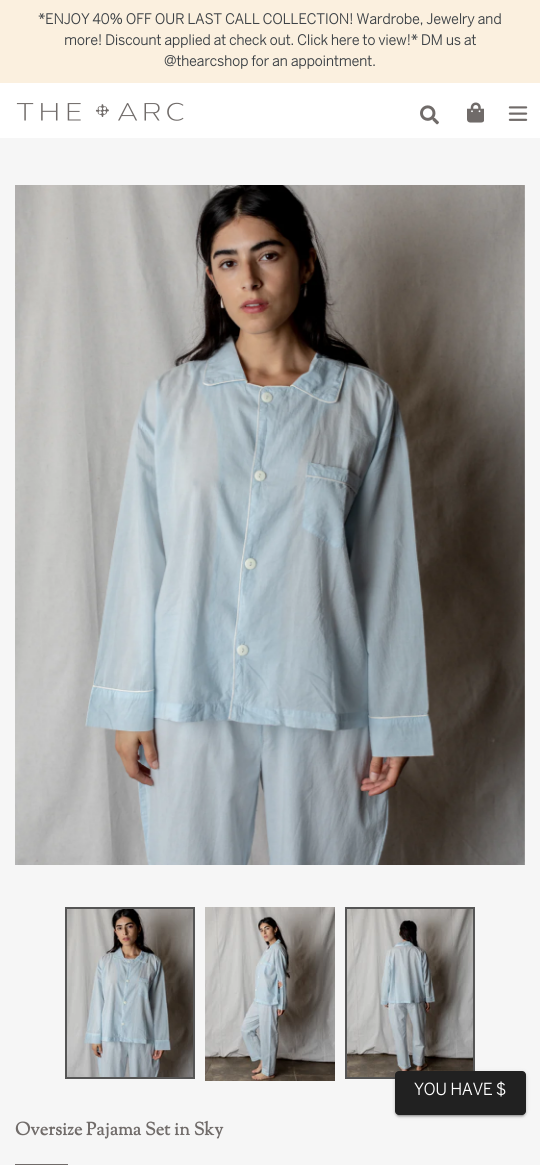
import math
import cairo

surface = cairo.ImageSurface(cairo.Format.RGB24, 540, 1165)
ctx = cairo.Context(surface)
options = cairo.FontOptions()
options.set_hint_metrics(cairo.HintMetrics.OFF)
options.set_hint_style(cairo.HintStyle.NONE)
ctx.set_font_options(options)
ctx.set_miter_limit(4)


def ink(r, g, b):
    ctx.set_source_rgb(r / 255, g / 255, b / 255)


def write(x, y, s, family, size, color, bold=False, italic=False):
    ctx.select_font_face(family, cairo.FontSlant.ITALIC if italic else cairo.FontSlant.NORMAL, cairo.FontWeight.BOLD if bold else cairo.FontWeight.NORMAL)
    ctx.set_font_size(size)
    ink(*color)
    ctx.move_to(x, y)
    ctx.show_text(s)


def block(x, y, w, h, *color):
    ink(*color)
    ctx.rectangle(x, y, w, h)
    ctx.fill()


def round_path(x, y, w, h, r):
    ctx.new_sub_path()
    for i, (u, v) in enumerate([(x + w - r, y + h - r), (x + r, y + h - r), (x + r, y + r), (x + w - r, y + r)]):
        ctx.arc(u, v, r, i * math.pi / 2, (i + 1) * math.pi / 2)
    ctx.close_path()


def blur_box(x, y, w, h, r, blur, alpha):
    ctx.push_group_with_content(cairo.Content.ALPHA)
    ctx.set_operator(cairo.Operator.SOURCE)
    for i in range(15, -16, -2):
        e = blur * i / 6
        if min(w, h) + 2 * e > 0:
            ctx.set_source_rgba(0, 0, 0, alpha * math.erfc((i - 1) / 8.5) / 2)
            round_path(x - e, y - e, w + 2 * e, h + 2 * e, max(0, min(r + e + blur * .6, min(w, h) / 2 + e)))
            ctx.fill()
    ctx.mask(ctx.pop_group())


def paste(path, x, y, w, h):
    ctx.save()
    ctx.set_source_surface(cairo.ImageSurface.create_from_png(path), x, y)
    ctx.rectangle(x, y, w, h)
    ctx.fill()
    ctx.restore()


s1 = dict(family="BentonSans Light", size=14, color=(61, 66, 70), bold=True)
s2 = dict(family="BentonSans Light", size=16, color=(255, 255, 255), bold=True)
s3 = dict(family="Sorts Mill Goudy", size=18, color=(112, 107, 105), bold=True)

ink(246, 246, 246)
ctx.paint()
block(0, 0, 540, 83, 251, 240, 223)
write(38, 24, "*ENJOY 40% OFF OUR LAST CALL COLLECTION! Wardrobe, Jewelry and", **s1)
write(64, 45, "more! Discount applied at check out. Click here to view!* DM us at", **s1)
write(164, 66, "@thearcshop for an appointment.", **s1)
block(0, 83, 540, 55, 255, 255, 255)
paste("pic1.png", 16, 102, 168, 19)
paste("pic2.png", 420, 105, 19, 20)
paste("pic3.png", 467, 102, 17, 21)
paste("pic4.png", 508, 106, 20, 15)
ctx.rectangle(346, 908, 128, 170)
ink(85, 85, 85)
ctx.stroke()
paste("pic8.png", 347, 909, 126, 168)
ink(0, 0, 0)
blur_box(395, 1072, 131, 44, 4, 2.5, 0.12)
blur_box(395, 1073, 131, 44, 4, 1, 0.14)
blur_box(397, 1076, 127, 40, 2, 0.5, 0.2)
ink(33, 33, 33)
round_path(395, 1071, 131, 44, 4)
ctx.fill()
write(414, 1095, "YOU HAVE $", **s2)
paste("pic5.png", 15, 185, 510, 680)
ctx.rectangle(66, 908, 128, 170)
ink(85, 85, 85)
ctx.stroke()
paste("pic6.png", 67, 909, 126, 168)
paste("pic7.png", 205, 907, 130, 174)
write(15, 1135, "Oversize Pajama Set in Sky", **s3)
block(15, 1164, 53, 1, 112, 107, 105)
surface.write_to_png("screenshot.png")
